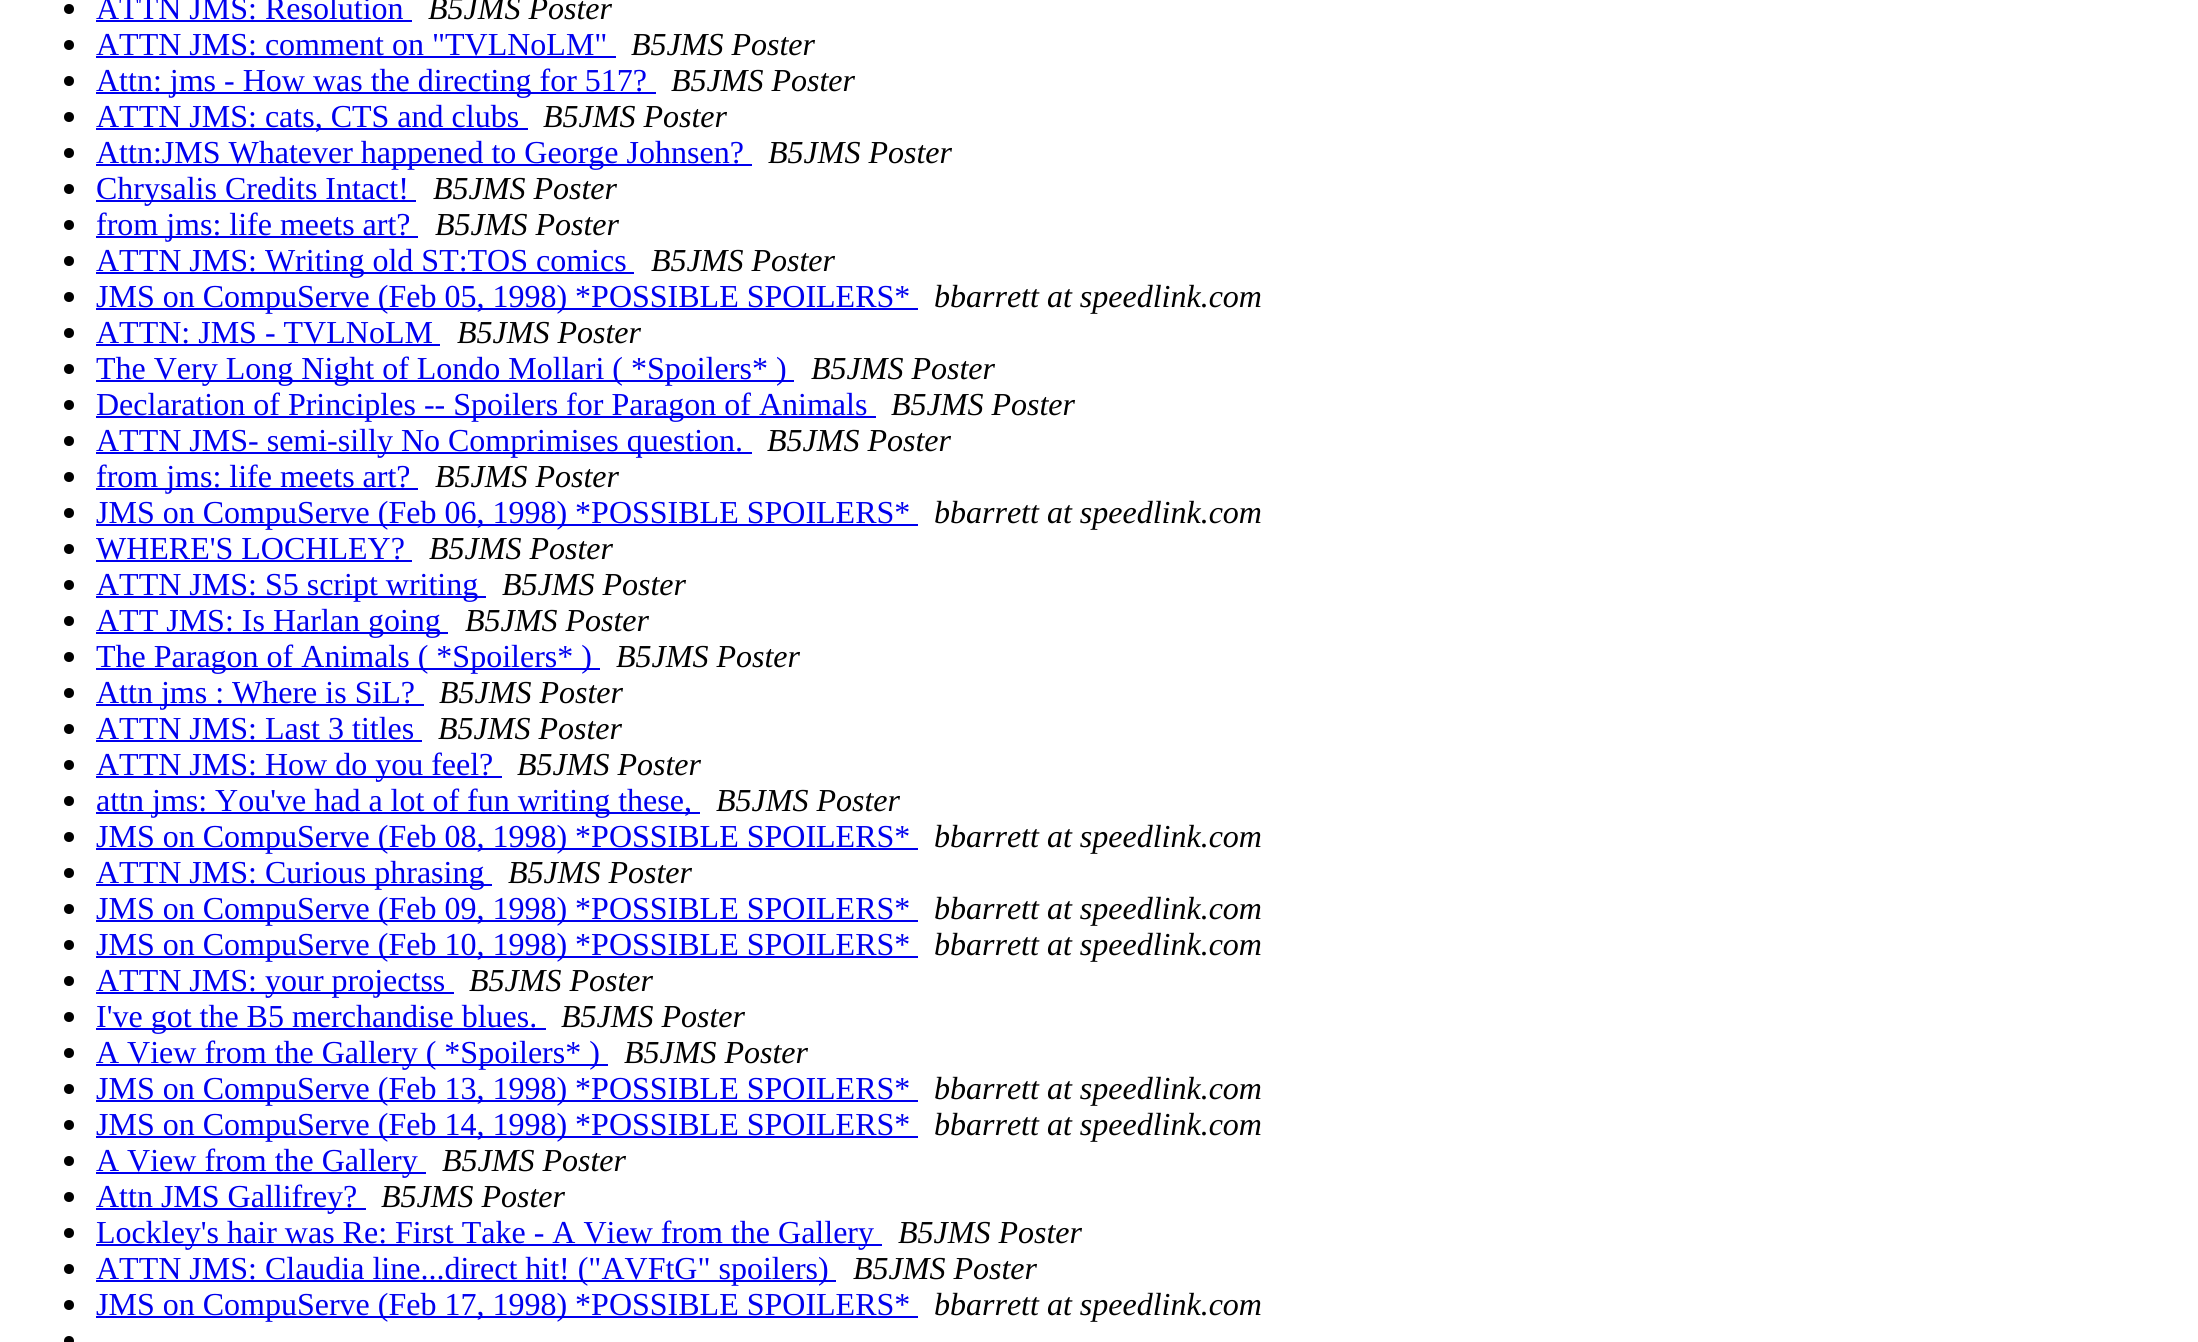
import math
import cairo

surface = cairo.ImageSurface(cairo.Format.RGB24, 2198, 1342)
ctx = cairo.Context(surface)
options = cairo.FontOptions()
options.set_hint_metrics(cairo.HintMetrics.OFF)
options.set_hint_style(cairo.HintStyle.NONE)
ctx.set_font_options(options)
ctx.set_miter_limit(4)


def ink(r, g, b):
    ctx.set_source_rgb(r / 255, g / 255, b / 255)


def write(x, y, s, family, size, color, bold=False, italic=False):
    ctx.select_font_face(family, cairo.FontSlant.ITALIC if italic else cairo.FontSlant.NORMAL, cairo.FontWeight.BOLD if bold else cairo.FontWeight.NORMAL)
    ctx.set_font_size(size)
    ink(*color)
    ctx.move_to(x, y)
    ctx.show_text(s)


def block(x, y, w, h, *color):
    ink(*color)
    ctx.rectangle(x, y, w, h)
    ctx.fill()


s1 = dict(family="Liberation Serif", size=32, color=(0, 0, 238))
s2 = dict(family="Liberation Serif", size=32, color=(0, 0, 0), italic=True)

ink(255, 255, 255)
ctx.paint()
ink(0, 0, 0)
ctx.arc(69, 9, 5, 0, 2 * math.pi)
ctx.fill()
write(96, 19, "ATTN JMS: Resolution", **s1)
block(96, 20, 316, 2, 0, 0, 238)
write(428, 19, "B5JMS Poster", **s2)
ctx.new_path()
ctx.arc(69, 45, 5, 0, 2 * math.pi)
ctx.fill()
write(96, 55, "ATTN JMS: comment on \"TVLNoLM\"", **s1)
block(96, 56, 520, 2, 0, 0, 238)
write(631, 55, "B5JMS Poster", **s2)
ctx.new_path()
ctx.arc(69, 81, 5, 0, 2 * math.pi)
ctx.fill()
block(96, 92, 560, 2, 0, 0, 238)
write(96, 91, "Attn: jms - How was the directing for 517?", **s1)
write(671, 91, "B5JMS Poster", **s2)
ctx.new_path()
ctx.arc(69, 117, 5, 0, 2 * math.pi)
ctx.fill()
block(96, 128, 432, 2, 0, 0, 238)
write(96, 127, "ATTN JMS: cats, CTS and clubs", **s1)
write(543, 127, "B5JMS Poster", **s2)
ctx.new_path()
ctx.arc(69, 153, 5, 0, 2 * math.pi)
ctx.fill()
block(96, 164, 656, 2, 0, 0, 238)
write(96, 163, "Attn:JMS Whatever happened to George Johnsen?", **s1)
write(768, 163, "B5JMS Poster", **s2)
ctx.new_path()
ctx.arc(69, 189, 5, 0, 2 * math.pi)
ctx.fill()
block(96, 200, 320, 2, 0, 0, 238)
write(96, 199, "Chrysalis Credits Intact!", **s1)
write(433, 199, "B5JMS Poster", **s2)
ctx.new_path()
ctx.arc(69, 225, 5, 0, 2 * math.pi)
ctx.fill()
block(96, 236, 322, 2, 0, 0, 238)
write(96, 235, "from jms: life meets art?", **s1)
write(435, 235, "B5JMS Poster", **s2)
ctx.new_path()
ctx.arc(69, 261, 5, 0, 2 * math.pi)
ctx.fill()
block(96, 272, 538, 2, 0, 0, 238)
write(96, 271, "ATTN JMS: Writing old ST:TOS comics", **s1)
write(651, 271, "B5JMS Poster", **s2)
ctx.new_path()
ctx.arc(69, 297, 5, 0, 2 * math.pi)
ctx.fill()
block(96, 308, 822, 2, 0, 0, 238)
write(96, 307, "JMS on CompuServe (Feb 05, 1998) *POSSIBLE SPOILERS*", **s1)
write(934, 307, "bbarrett at speedlink.com", **s2)
ctx.new_path()
ctx.arc(69, 333, 5, 0, 2 * math.pi)
ctx.fill()
write(96, 343, "ATTN: JMS - TVLNoLM", **s1)
block(96, 344, 344, 2, 0, 0, 238)
write(457, 343, "B5JMS Poster", **s2)
ctx.new_path()
ctx.arc(69, 369, 5, 0, 2 * math.pi)
ctx.fill()
block(96, 380, 698, 2, 0, 0, 238)
write(96, 379, "The Very Long Night of Londo Mollari ( *Spoilers* )", **s1)
write(811, 379, "B5JMS Poster", **s2)
ctx.new_path()
ctx.arc(69, 405, 5, 0, 2 * math.pi)
ctx.fill()
block(96, 416, 780, 2, 0, 0, 238)
write(96, 415, "Declaration of Principles -- Spoilers for Paragon of Animals", **s1)
write(891, 415, "B5JMS Poster", **s2)
ctx.new_path()
ctx.arc(69, 441, 5, 0, 2 * math.pi)
ctx.fill()
block(96, 452, 656, 2, 0, 0, 238)
write(96, 451, "ATTN JMS- semi-silly No Comprimises question.", **s1)
write(767, 451, "B5JMS Poster", **s2)
ctx.new_path()
ctx.arc(69, 477, 5, 0, 2 * math.pi)
ctx.fill()
block(96, 488, 322, 2, 0, 0, 238)
write(96, 487, "from jms: life meets art?", **s1)
write(435, 487, "B5JMS Poster", **s2)
ctx.new_path()
ctx.arc(69, 513, 5, 0, 2 * math.pi)
ctx.fill()
block(96, 524, 822, 2, 0, 0, 238)
write(96, 523, "JMS on CompuServe (Feb 06, 1998) *POSSIBLE SPOILERS*", **s1)
write(934, 523, "bbarrett at speedlink.com", **s2)
ctx.new_path()
ctx.arc(69, 549, 5, 0, 2 * math.pi)
ctx.fill()
write(96, 559, "WHERE'S LOCHLEY?", **s1)
block(96, 560, 316, 2, 0, 0, 238)
write(429, 559, "B5JMS Poster", **s2)
ctx.new_path()
ctx.arc(69, 585, 5, 0, 2 * math.pi)
ctx.fill()
block(96, 596, 390, 2, 0, 0, 238)
write(96, 595, "ATTN JMS: S5 script writing", **s1)
write(502, 595, "B5JMS Poster", **s2)
ctx.new_path()
ctx.arc(69, 621, 5, 0, 2 * math.pi)
ctx.fill()
block(96, 632, 352, 2, 0, 0, 238)
write(96, 631, "ATT JMS: Is Harlan going", **s1)
write(465, 631, "B5JMS Poster", **s2)
ctx.new_path()
ctx.arc(69, 657, 5, 0, 2 * math.pi)
ctx.fill()
block(96, 668, 504, 2, 0, 0, 238)
write(96, 667, "The Paragon of Animals ( *Spoilers* )", **s1)
write(616, 667, "B5JMS Poster", **s2)
ctx.new_path()
ctx.arc(69, 693, 5, 0, 2 * math.pi)
ctx.fill()
block(96, 704, 328, 2, 0, 0, 238)
write(96, 703, "Attn jms : Where is SiL?", **s1)
write(439, 703, "B5JMS Poster", **s2)
ctx.new_path()
ctx.arc(69, 729, 5, 0, 2 * math.pi)
ctx.fill()
write(96, 739, "ATTN JMS: Last 3 titles", **s1)
block(96, 740, 326, 2, 0, 0, 238)
write(438, 739, "B5JMS Poster", **s2)
ctx.new_path()
ctx.arc(69, 765, 5, 0, 2 * math.pi)
ctx.fill()
block(96, 776, 406, 2, 0, 0, 238)
write(96, 775, "ATTN JMS: How do you feel?", **s1)
write(517, 775, "B5JMS Poster", **s2)
ctx.new_path()
ctx.arc(69, 801, 5, 0, 2 * math.pi)
ctx.fill()
block(96, 812, 604, 2, 0, 0, 238)
write(96, 811, "attn jms: You've had a lot of fun writing these,", **s1)
write(716, 811, "B5JMS Poster", **s2)
ctx.new_path()
ctx.arc(69, 837, 5, 0, 2 * math.pi)
ctx.fill()
block(96, 848, 822, 2, 0, 0, 238)
write(96, 847, "JMS on CompuServe (Feb 08, 1998) *POSSIBLE SPOILERS*", **s1)
write(934, 847, "bbarrett at speedlink.com", **s2)
ctx.new_path()
ctx.arc(69, 873, 5, 0, 2 * math.pi)
ctx.fill()
block(96, 884, 396, 2, 0, 0, 238)
write(96, 883, "ATTN JMS: Curious phrasing", **s1)
write(508, 883, "B5JMS Poster", **s2)
ctx.new_path()
ctx.arc(69, 909, 5, 0, 2 * math.pi)
ctx.fill()
block(96, 920, 822, 2, 0, 0, 238)
write(96, 919, "JMS on CompuServe (Feb 09, 1998) *POSSIBLE SPOILERS*", **s1)
write(934, 919, "bbarrett at speedlink.com", **s2)
ctx.new_path()
ctx.arc(69, 945, 5, 0, 2 * math.pi)
ctx.fill()
block(96, 956, 822, 2, 0, 0, 238)
write(96, 955, "JMS on CompuServe (Feb 10, 1998) *POSSIBLE SPOILERS*", **s1)
write(934, 955, "bbarrett at speedlink.com", **s2)
ctx.new_path()
ctx.arc(69, 981, 5, 0, 2 * math.pi)
ctx.fill()
block(96, 992, 358, 2, 0, 0, 238)
write(96, 991, "ATTN JMS: your projectss", **s1)
write(469, 991, "B5JMS Poster", **s2)
ctx.new_path()
ctx.arc(69, 1017, 5, 0, 2 * math.pi)
ctx.fill()
block(96, 1028, 450, 2, 0, 0, 238)
write(96, 1027, "I've got the B5 merchandise blues.", **s1)
write(561, 1027, "B5JMS Poster", **s2)
ctx.new_path()
ctx.arc(69, 1053, 5, 0, 2 * math.pi)
ctx.fill()
block(96, 1064, 512, 2, 0, 0, 238)
write(96, 1063, "A View from the Gallery ( *Spoilers* )", **s1)
write(624, 1063, "B5JMS Poster", **s2)
ctx.new_path()
ctx.arc(69, 1089, 5, 0, 2 * math.pi)
ctx.fill()
block(96, 1100, 822, 2, 0, 0, 238)
write(96, 1099, "JMS on CompuServe (Feb 13, 1998) *POSSIBLE SPOILERS*", **s1)
write(934, 1099, "bbarrett at speedlink.com", **s2)
ctx.new_path()
ctx.arc(69, 1125, 5, 0, 2 * math.pi)
ctx.fill()
block(96, 1136, 822, 2, 0, 0, 238)
write(96, 1135, "JMS on CompuServe (Feb 14, 1998) *POSSIBLE SPOILERS*", **s1)
write(934, 1135, "bbarrett at speedlink.com", **s2)
ctx.new_path()
ctx.arc(69, 1161, 5, 0, 2 * math.pi)
ctx.fill()
block(96, 1172, 330, 2, 0, 0, 238)
write(96, 1171, "A View from the Gallery", **s1)
write(442, 1171, "B5JMS Poster", **s2)
ctx.new_path()
ctx.arc(69, 1197, 5, 0, 2 * math.pi)
ctx.fill()
block(96, 1208, 270, 2, 0, 0, 238)
write(96, 1207, "Attn JMS Gallifrey?", **s1)
write(381, 1207, "B5JMS Poster", **s2)
ctx.new_path()
ctx.arc(69, 1233, 5, 0, 2 * math.pi)
ctx.fill()
block(96, 1244, 786, 2, 0, 0, 238)
write(96, 1243, "Lockley's hair was Re: First Take - A View from the Gallery", **s1)
write(898, 1243, "B5JMS Poster", **s2)
ctx.new_path()
ctx.arc(69, 1269, 5, 0, 2 * math.pi)
ctx.fill()
block(96, 1280, 740, 2, 0, 0, 238)
write(96, 1279, "ATTN JMS: Claudia line...direct hit! (\"AVFtG\" spoilers)", **s1)
write(853, 1279, "B5JMS Poster", **s2)
ctx.new_path()
ctx.arc(69, 1305, 5, 0, 2 * math.pi)
ctx.fill()
block(96, 1316, 822, 2, 0, 0, 238)
write(96, 1315, "JMS on CompuServe (Feb 17, 1998) *POSSIBLE SPOILERS*", **s1)
write(934, 1315, "bbarrett at speedlink.com", **s2)
ctx.new_path()
ctx.arc(69, 1341, 5, 0, 2 * math.pi)
ctx.fill()
surface.write_to_png("screenshot.png")
